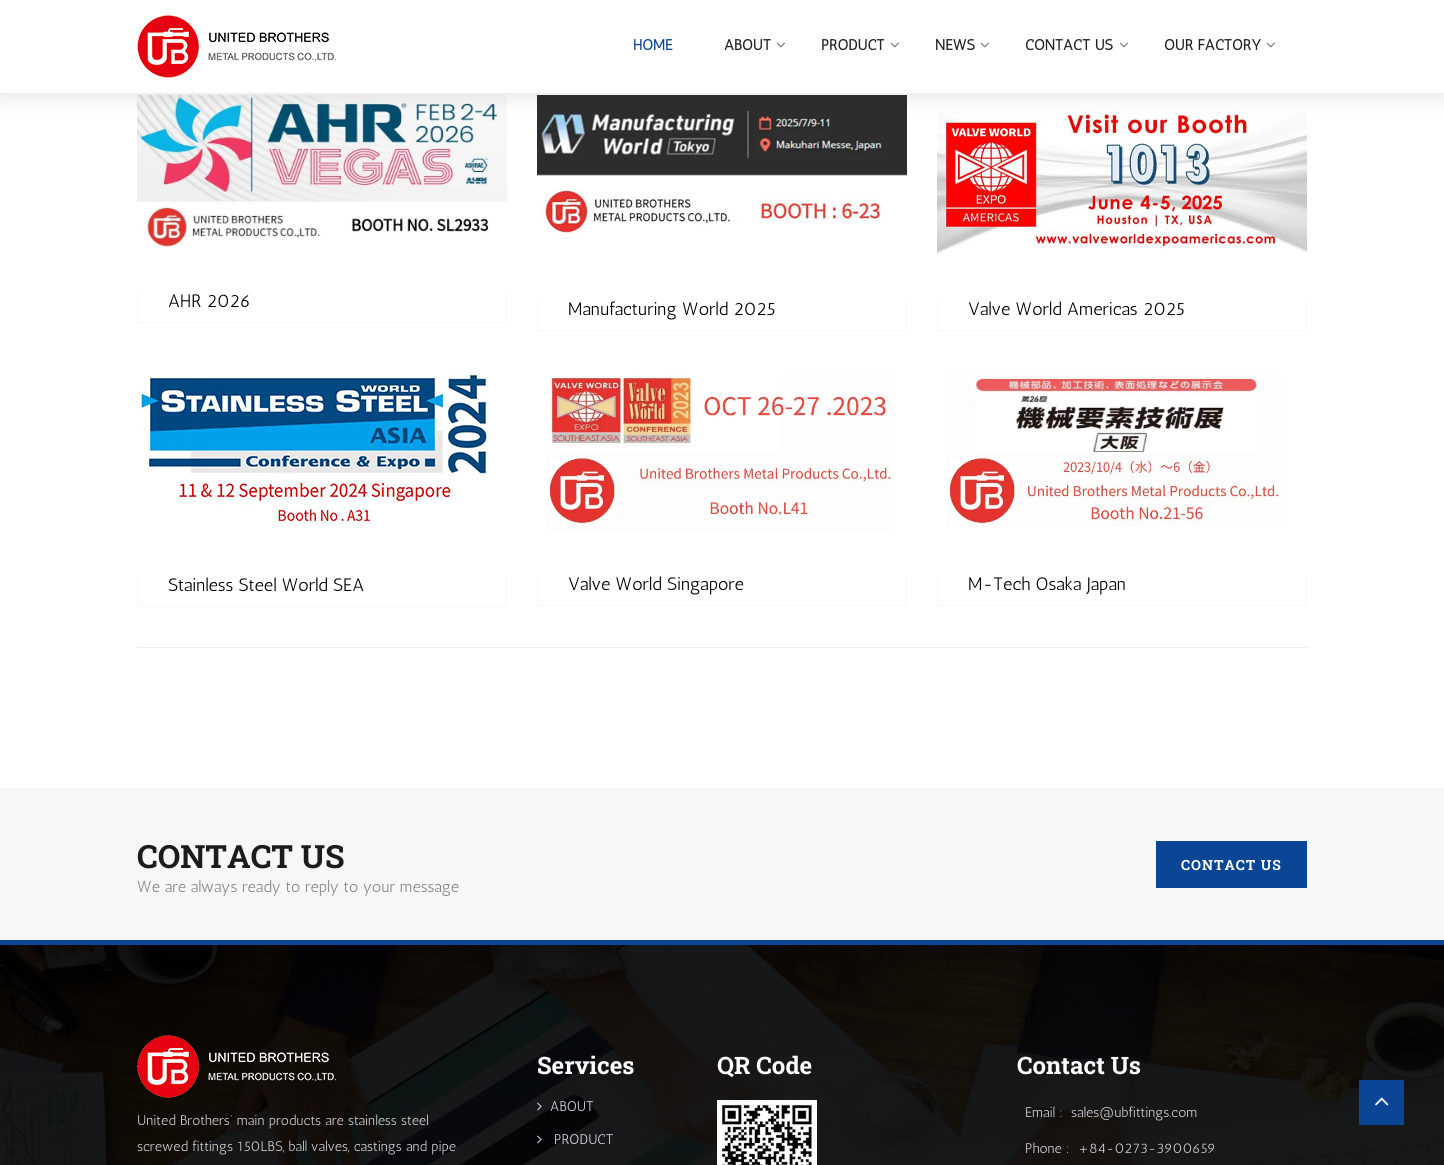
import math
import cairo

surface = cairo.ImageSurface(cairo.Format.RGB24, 1444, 1165)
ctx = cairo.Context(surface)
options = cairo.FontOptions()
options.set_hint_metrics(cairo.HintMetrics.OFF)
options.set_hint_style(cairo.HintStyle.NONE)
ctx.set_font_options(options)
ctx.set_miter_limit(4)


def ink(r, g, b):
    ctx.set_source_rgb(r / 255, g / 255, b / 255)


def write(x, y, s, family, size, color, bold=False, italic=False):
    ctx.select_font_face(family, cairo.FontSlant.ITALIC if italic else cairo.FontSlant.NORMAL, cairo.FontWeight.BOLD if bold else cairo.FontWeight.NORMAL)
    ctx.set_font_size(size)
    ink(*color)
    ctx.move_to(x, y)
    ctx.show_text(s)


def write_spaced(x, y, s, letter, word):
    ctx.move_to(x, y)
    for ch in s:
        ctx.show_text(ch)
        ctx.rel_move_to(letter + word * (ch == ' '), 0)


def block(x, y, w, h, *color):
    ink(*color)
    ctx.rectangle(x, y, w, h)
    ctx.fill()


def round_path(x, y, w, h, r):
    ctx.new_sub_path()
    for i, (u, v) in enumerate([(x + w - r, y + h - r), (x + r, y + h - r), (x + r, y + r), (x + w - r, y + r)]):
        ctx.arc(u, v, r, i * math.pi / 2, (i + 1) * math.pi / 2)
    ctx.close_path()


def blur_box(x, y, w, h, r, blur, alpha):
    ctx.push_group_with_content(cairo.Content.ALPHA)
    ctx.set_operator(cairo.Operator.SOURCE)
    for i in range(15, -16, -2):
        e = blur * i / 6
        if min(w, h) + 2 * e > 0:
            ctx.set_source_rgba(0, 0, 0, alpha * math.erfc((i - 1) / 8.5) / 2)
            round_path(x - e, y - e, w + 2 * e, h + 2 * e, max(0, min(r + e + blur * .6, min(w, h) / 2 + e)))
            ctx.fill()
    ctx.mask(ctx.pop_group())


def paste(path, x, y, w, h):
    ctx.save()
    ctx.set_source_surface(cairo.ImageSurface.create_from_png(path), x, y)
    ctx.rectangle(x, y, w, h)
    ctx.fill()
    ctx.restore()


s1 = dict(family="Antic", size=15, color=(11, 70, 150), bold=True)
s2 = dict(family="Antic", size=15, color=(34, 34, 34), bold=True)
s3 = dict(family="Antic", size=18, color=(0, 0, 0))
s4 = dict(family="Roboto Slab", size=32, color=(28, 28, 28), bold=True)
s5 = dict(family="Antic", size=16, color=(136, 136, 136))
s6 = dict(family="Antic", size=14, color=(204, 204, 204))
s7 = dict(family="Roboto Slab", size=24, color=(255, 255, 255), bold=True)
s8 = dict(family="Antic", size=14, color=(212, 218, 227))

ink(255, 255, 255)
ctx.paint()
paste("pic3.png", 137, 95, 370, 153)
paste("pic4.png", 537, 95, 370, 144)
paste("pic5.png", 937, 111, 370, 144)
ink(0, 0, 0)
blur_box(0, 3, 1444, 93, 0, 10, 0.11)
block(0, 0, 1444, 93, 255, 255, 255)
paste("pic1.png", 137, 15, 199, 63)
write(633, 50, "HOME", **s1)
write(724, 50, "ABOUT", **s2)
paste("pic2.png", 776, 42, 9, 6)
write(821, 50, "PRODUCT", **s2)
paste("pic2.png", 890, 42, 9, 6)
write(935, 50, "NEWS", **s2)
paste("pic2.png", 980, 42, 9, 6)
write(1025, 50, "CONTACT US", **s2)
paste("pic2.png", 1119, 42, 9, 6)
write(1164, 50, "OUR FACTORY", **s2)
paste("pic2.png", 1266, 42, 9, 6)
block(506, 292, 1, 31, 247, 247, 247)
block(137, 322, 370, 1, 247, 247, 247)
block(137, 292, 1, 31, 247, 247, 247)
write(168, 307, "AHR 2026", **s3)
block(906, 300, 1, 31, 247, 247, 247)
block(537, 330, 370, 1, 247, 247, 247)
block(537, 300, 1, 31, 247, 247, 247)
write(568, 315, "Manufacturing World 2025", **s3)
block(1306, 300, 1, 31, 247, 247, 247)
block(937, 330, 370, 1, 247, 247, 247)
block(937, 300, 1, 31, 247, 247, 247)
write(968, 315, "Valve World Americas 2025", **s3)
paste("pic6.png", 137, 372, 355, 151)
block(506, 576, 1, 31, 247, 247, 247)
block(137, 606, 370, 1, 247, 247, 247)
block(137, 576, 1, 31, 247, 247, 247)
write(168, 591, "Stainless Steel World SEA", **s3)
paste("pic7.png", 546, 375, 348, 156)
block(906, 575, 1, 31, 247, 247, 247)
block(537, 605, 370, 1, 247, 247, 247)
block(537, 575, 1, 31, 247, 247, 247)
write(568, 590, "Valve World Singapore", **s3)
paste("pic8.png", 946, 375, 335, 152)
block(1306, 575, 1, 31, 247, 247, 247)
block(937, 605, 370, 1, 247, 247, 247)
block(937, 575, 1, 31, 247, 247, 247)
write(968, 590, "M-Tech Osaka Japan", **s3)
block(137, 647, 1170, 1, 238, 238, 238)
block(0, 788, 1444, 152, 247, 247, 247)
write(137, 868, "CONTACT US", **s4)
write(137, 892, "We are always ready to reply to your message", **s5)
block(1156, 841, 151, 47, 11, 70, 150)
ctx.select_font_face("Roboto Slab", cairo.FontSlant.NORMAL, cairo.FontWeight.BOLD)
ctx.set_font_size(14)
ink(255, 255, 255)
write_spaced(1181, 870, "CONTACT US", 1, 0)
paste("pic9.png", 0, 945, 1444, 220)
block(0, 940, 1444, 5, 11, 70, 150)
paste("pic10.png", 137, 1035, 199, 63)
write(137, 1125, "United Brothers’ main products are stainless steel", **s6)
write(137, 1151, "screwed fittings 150LBS, ball valves, castings and pipe", **s6)
write(537, 1074, "Services", **s7)
paste("pic11.png", 537, 1102, 5, 9)
write(550, 1111, "ABOUT", **s8)
paste("pic12.png", 537, 1135, 5, 9)
write(554, 1144, "PRODUCT", **s8)
write(717, 1074, "QR Code", **s7)
paste("pic13.png", 717, 1100, 100, 65)
write(1017, 1074, "Contact Us", **s7)
write(1025, 1117, "Email :  sales@ubfittings.com", **s6)
write(1025, 1153, "Phone :  +84-0273-3900659", **s6)
block(1359, 1080, 45, 45, 11, 70, 150)
paste("pic14.png", 1375, 1097, 14, 9)
surface.write_to_png("screenshot.png")
